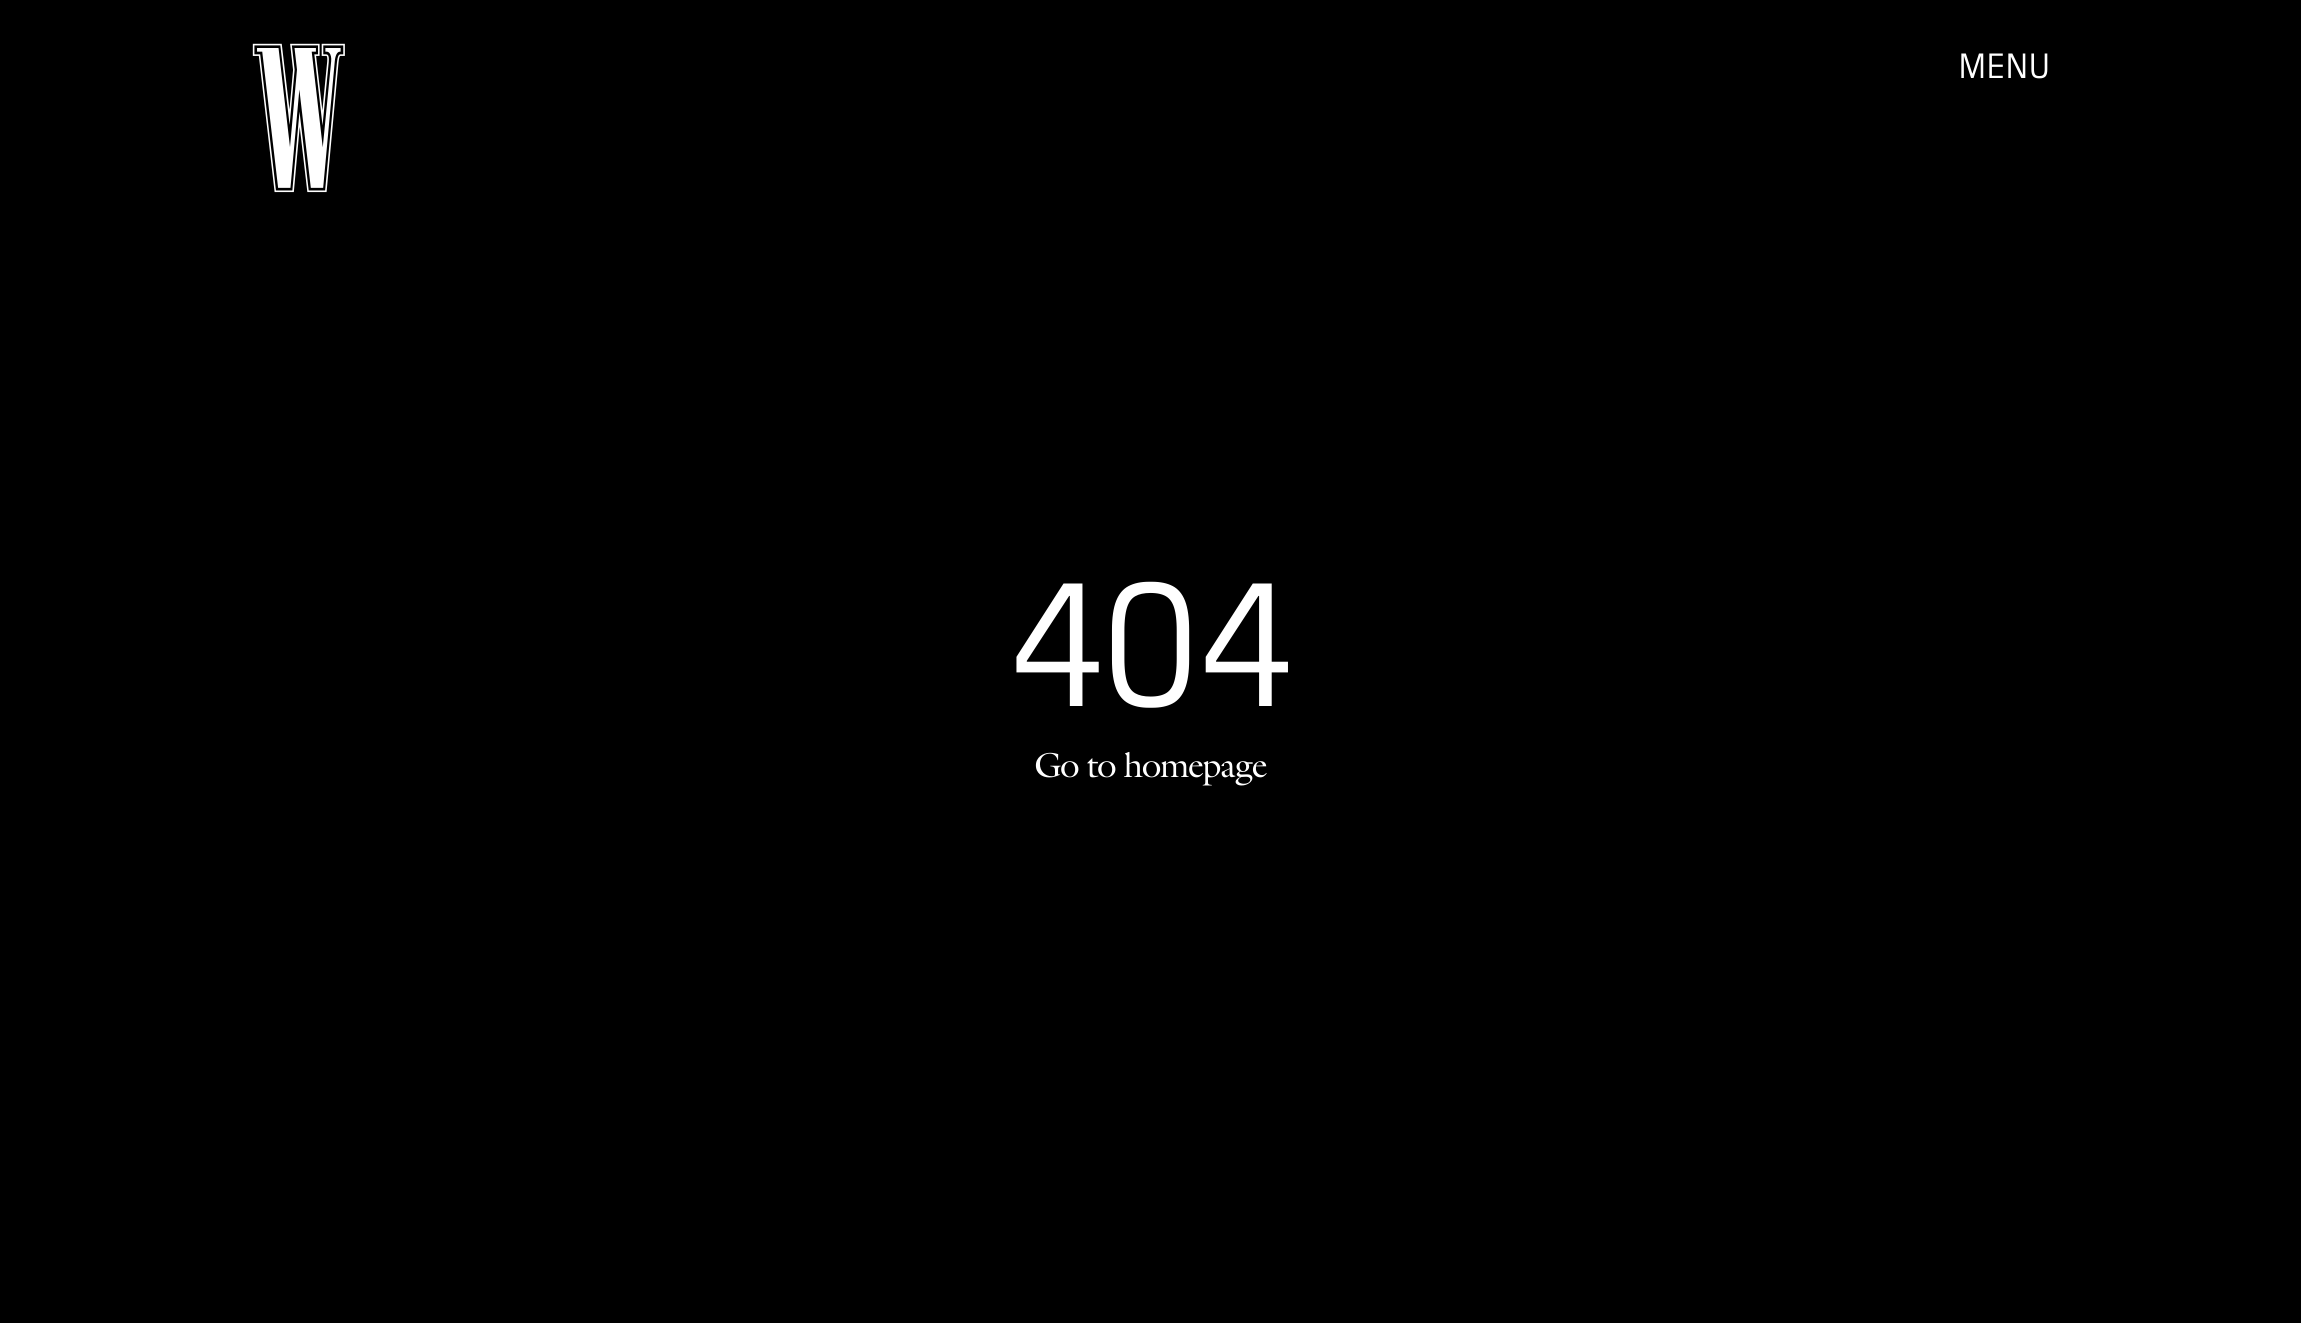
import math
import cairo

surface = cairo.ImageSurface(cairo.Format.RGB24, 2301, 1323)
ctx = cairo.Context(surface)
options = cairo.FontOptions()
options.set_hint_metrics(cairo.HintMetrics.OFF)
options.set_hint_style(cairo.HintStyle.NONE)
ctx.set_font_options(options)
ctx.set_miter_limit(4)


def ink(r, g, b):
    ctx.set_source_rgb(r / 255, g / 255, b / 255)


def write(x, y, s, family, size, color, bold=False, italic=False):
    ctx.select_font_face(family, cairo.FontSlant.ITALIC if italic else cairo.FontSlant.NORMAL, cairo.FontWeight.BOLD if bold else cairo.FontWeight.NORMAL)
    ctx.set_font_size(size)
    ink(*color)
    ctx.move_to(x, y)
    ctx.show_text(s)


def write_spaced(x, y, s, letter, word):
    ctx.move_to(x, y)
    for ch in s:
        ctx.show_text(ch)
        ctx.rel_move_to(letter + word * (ch == ' '), 0)


def paste(path, x, y, w, h):
    ctx.save()
    ctx.set_source_surface(cairo.ImageSurface.create_from_png(path), x, y)
    ctx.rectangle(x, y, w, h)
    ctx.fill()
    ctx.restore()


s1 = dict(family="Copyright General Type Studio", size=175, color=(255, 255, 255))

ink(0, 0, 0)
ctx.paint()
paste("pic1.png", 252, 43, 93, 150)
ctx.select_font_face("Copyright General Type Studio")
ctx.set_font_size(35)
ink(255, 255, 255)
write_spaced(1959, 78, "MENU", 1.5, 0)
write(1010, 706, "404", **s1)
ctx.select_font_face("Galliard")
ctx.set_font_size(35)
write_spaced(1034, 777, "Go to homepage", -1.4, 0)
surface.write_to_png("screenshot.png")
